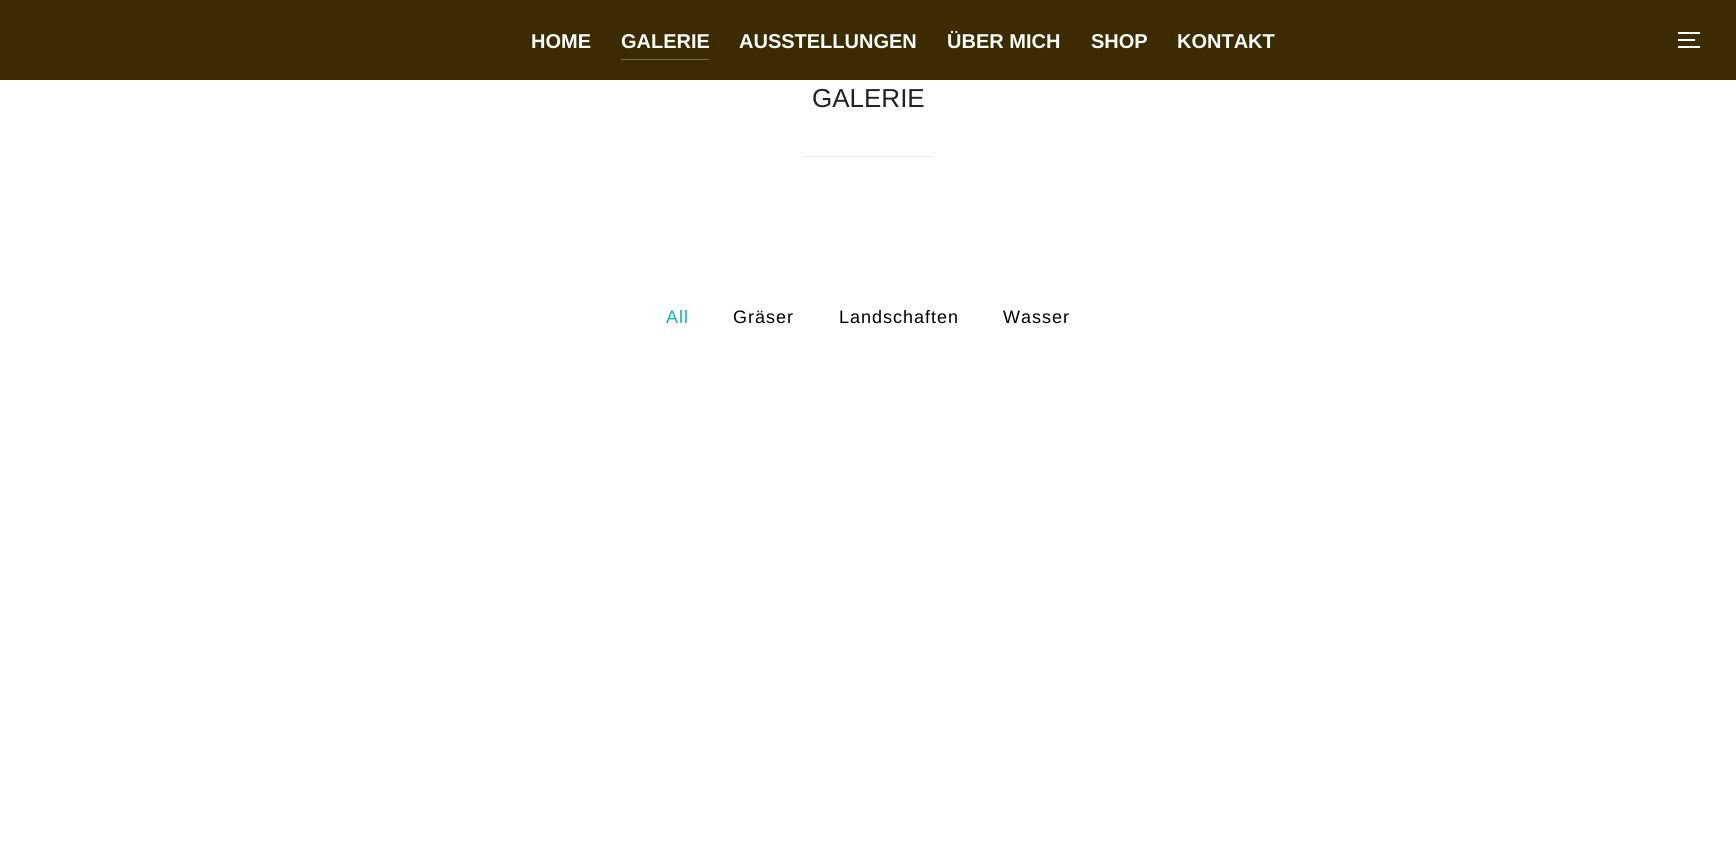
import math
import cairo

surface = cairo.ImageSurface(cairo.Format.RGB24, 1736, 859)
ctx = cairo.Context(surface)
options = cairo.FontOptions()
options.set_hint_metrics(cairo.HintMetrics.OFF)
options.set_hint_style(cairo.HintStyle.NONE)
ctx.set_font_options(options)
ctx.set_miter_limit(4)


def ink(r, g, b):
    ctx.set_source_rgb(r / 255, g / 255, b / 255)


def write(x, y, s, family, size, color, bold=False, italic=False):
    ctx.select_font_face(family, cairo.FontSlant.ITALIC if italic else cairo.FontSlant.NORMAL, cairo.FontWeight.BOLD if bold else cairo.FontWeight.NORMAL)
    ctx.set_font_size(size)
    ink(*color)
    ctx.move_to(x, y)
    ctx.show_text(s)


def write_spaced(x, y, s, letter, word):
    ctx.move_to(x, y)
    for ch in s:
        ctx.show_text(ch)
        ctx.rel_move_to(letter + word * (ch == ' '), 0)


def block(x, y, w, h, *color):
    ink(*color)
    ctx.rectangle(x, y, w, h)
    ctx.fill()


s1 = dict(family="Liberation Sans", size=20, color=(255, 255, 255), bold=True)
s2 = dict(family="Liberation Sans", size=26, color=(34, 34, 34))

ink(255, 255, 255)
ctx.paint()
block(0, 0, 1736, 80, 61, 43, 0)
write(531, 48, "HOME", **s1)
block(621, 59, 88, 1, 119, 107, 77)
write(621, 48, "GALERIE", **s1)
write(739, 48, "AUSSTELLUNGEN", **s1)
write(947, 48, "ÜBER MICH", **s1)
write(1091, 48, "SHOP", **s1)
write(1177, 48, "KONTAKT", **s1)
block(1678, 32, 22, 2, 255, 255, 255)
block(1678, 39, 17, 2, 255, 255, 255)
block(1678, 46, 22, 2, 255, 255, 255)
write(812, 107, "GALERIE", **s2)
block(803, 156, 130, 1, 230, 230, 230)
ctx.set_font_size(18)
ink(11, 180, 170)
write_spaced(666, 323, "All", 1, 0)
ink(0, 0, 0)
write_spaced(733, 323, "Gräser", 1, 0)
write_spaced(839, 323, "Landschaften", 1, 0)
write_spaced(1003, 323, "Wasser", 1, 0)
surface.write_to_png("screenshot.png")
